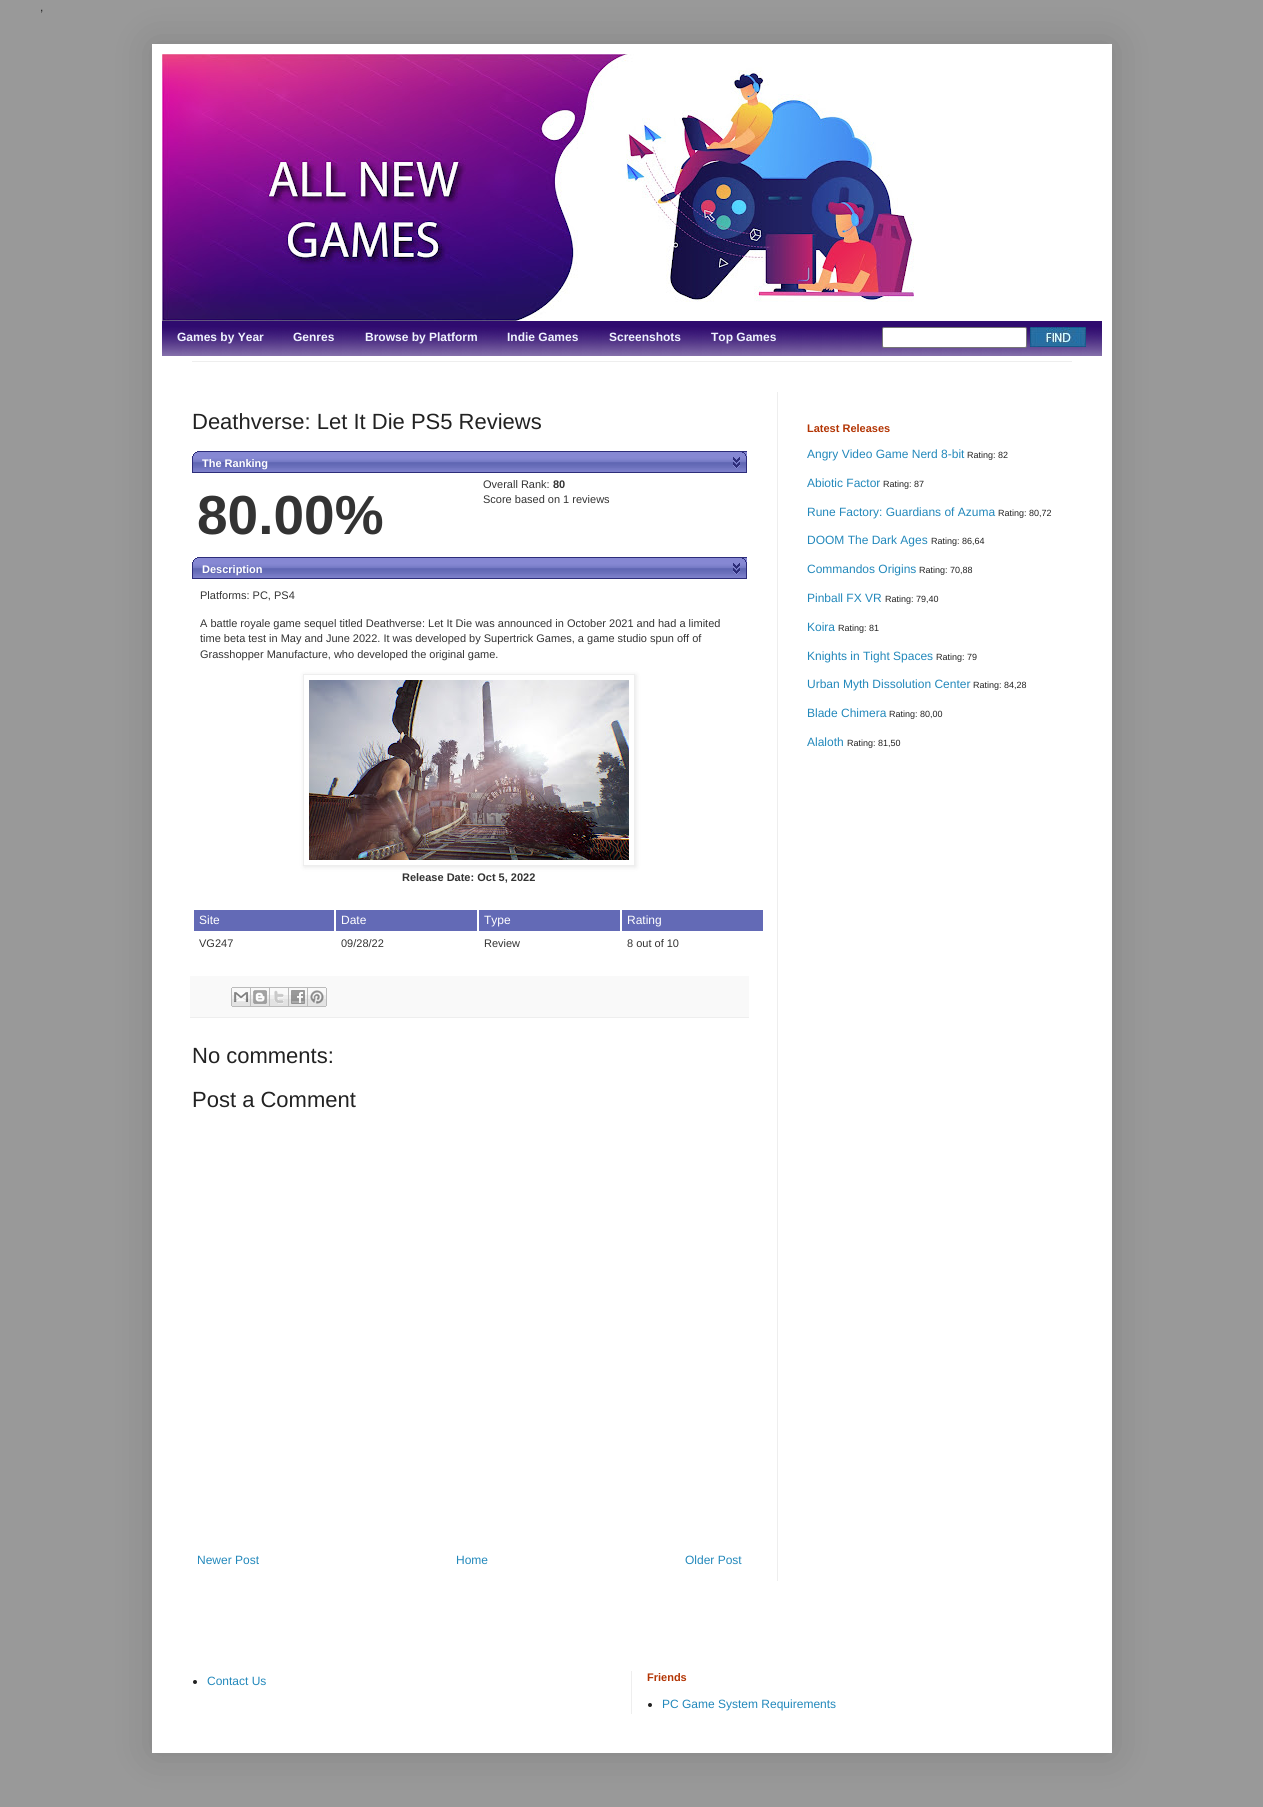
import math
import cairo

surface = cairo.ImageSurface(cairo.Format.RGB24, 1263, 1807)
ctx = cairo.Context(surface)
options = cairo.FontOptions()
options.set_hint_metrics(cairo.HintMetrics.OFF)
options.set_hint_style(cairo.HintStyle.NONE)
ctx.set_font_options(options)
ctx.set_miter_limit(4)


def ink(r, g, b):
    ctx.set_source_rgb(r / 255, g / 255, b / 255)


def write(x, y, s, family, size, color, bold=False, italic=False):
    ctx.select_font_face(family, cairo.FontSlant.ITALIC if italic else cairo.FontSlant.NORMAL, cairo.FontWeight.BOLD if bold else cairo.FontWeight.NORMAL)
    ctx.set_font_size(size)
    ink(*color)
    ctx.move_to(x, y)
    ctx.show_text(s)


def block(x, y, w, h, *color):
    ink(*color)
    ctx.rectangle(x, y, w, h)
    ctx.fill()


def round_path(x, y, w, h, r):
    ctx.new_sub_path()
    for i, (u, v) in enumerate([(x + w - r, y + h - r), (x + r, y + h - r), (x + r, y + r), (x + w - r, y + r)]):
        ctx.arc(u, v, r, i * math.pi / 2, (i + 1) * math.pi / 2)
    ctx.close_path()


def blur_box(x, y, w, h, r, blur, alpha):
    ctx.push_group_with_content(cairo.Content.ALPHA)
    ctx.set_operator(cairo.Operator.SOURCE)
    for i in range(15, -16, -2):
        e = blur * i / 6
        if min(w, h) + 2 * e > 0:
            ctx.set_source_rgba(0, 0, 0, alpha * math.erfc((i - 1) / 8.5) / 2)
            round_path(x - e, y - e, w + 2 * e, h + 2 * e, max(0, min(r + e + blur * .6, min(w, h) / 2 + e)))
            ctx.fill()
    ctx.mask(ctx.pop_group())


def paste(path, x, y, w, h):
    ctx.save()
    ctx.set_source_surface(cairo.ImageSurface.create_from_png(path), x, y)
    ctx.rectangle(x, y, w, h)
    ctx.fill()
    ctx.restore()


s1 = dict(family="Liberation Sans", size=12, color=(34, 34, 34))
s2 = dict(family="Liberation Sans", size=12, color=(239, 243, 255), bold=True)
s3 = dict(family="Liberation Sans", size=22, color=(34, 34, 34))
s4 = dict(family="Liberation Sans", size=11, color=(255, 255, 255), bold=True)
s5 = dict(family="Liberation Sans", size=11, color=(51, 51, 51))
s6 = dict(family="Liberation Sans", size=11, color=(51, 51, 51), bold=True)
s7 = dict(family="Liberation Sans", size=55, color=(51, 51, 51), bold=True)
s8 = dict(family="Liberation Sans", size=12, color=(255, 255, 255))
s9 = dict(family="Liberation Sans", size=12, color=(34, 136, 187))
s10 = dict(family="Liberation Sans", size=11, color=(179, 53, 4), bold=True)
s11 = dict(family="Liberation Sans", size=9, color=(34, 34, 34))

ink(153, 153, 153)
ctx.paint()
write(40, 11, ",", **s1)
ink(0, 0, 0)
blur_box(152, 44, 960, 1709, 0, 20, 0.15)
block(152, 44, 960, 1709, 255, 255, 255)
paste("pic1.png", 162, 54, 752, 267)
paste("pic2.png", 162, 321, 940, 35)
write(177, 341, "Games by Year", **s2)
write(293, 341, "Genres", **s2)
write(365, 341, "Browse by Platform", **s2)
write(507, 341, "Indie Games", **s2)
write(609, 341, "Screenshots", **s2)
write(711, 341, "Top Games", **s2)
ink(255, 255, 255)
round_path(882.5, 327.5, 144, 20, 1.5)
ctx.fill_preserve()
ink(118, 118, 118)
ctx.set_line_width(1)
ctx.stroke()
paste("pic3.png", 1030, 327, 56, 20)
block(192, 361, 880, 1, 238, 238, 238)
block(777, 392, 1, 1189, 238, 238, 238)
write(192, 429, "Deathverse: Let It Die PS5 Reviews", **s3)
paste("pic4.png", 192, 451, 555, 22)
paste("pic5.png", 733, 452, 14, 20)
write(202, 467, "The Ranking", **s4)
write(483, 488, "Overall Rank:", **s5)
write(553, 488, "80", **s6)
write(483, 503, "Score based on 1 reviews", **s5)
write(197, 534, "80.00%", **s7)
paste("pic4.png", 192, 557, 555, 22)
paste("pic5.png", 733, 558, 14, 20)
write(202, 573, "Description", **s4)
write(200, 599, "Platforms: PC, PS4", **s5)
write(200, 627, "A battle royale game sequel titled Deathverse: Let It Die was announced in October 2021 and had a limited", **s5)
write(200, 642, "time beta test in May and June 2022. It was developed by Supertrick Games, a game studio spun off of", **s5)
write(200, 658, "Grasshopper Manufacture, who developed the original game.", **s5)
ctx.save()
ctx.set_fill_rule(cairo.FillRule.EVEN_ODD)
ctx.new_path()
ctx.move_to(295, 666)
ctx.line_to(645, 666)
ctx.line_to(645, 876)
ctx.line_to(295, 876)
ctx.close_path()
ctx.move_to(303, 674)
ctx.line_to(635, 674)
ctx.line_to(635, 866)
ctx.line_to(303, 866)
ctx.close_path()
ctx.clip()
ink(0, 0, 0)
blur_box(304, 675, 332, 192, 0, 2.5, 0.1)
ctx.restore()
ctx.rectangle(303.5, 674.5, 331, 191)
ink(238, 238, 238)
ctx.stroke()
paste("pic6.png", 309, 680, 320, 180)
write(402, 881, "Release Date: Oct 5, 2022", **s6)
block(194, 910, 140, 21, 99, 106, 182)
write(199, 924, "Site", **s8)
block(336, 910, 141, 21, 99, 106, 182)
write(341, 924, "Date", **s8)
block(479, 910, 141, 21, 99, 106, 182)
write(484, 924, "Type", **s8)
block(622, 910, 141, 21, 99, 106, 182)
write(627, 924, "Rating", **s8)
write(199, 947, "VG247", **s5)
write(341, 947, "09/28/22", **s5)
write(484, 947, "Review", **s5)
write(627, 947, "8 out of 10", **s5)
block(190, 976, 559, 41, 249, 249, 249)
block(190, 1017, 559, 1, 238, 238, 238)
paste("pic7.png", 231, 987, 20, 20)
paste("pic8.png", 251, 987, 19, 20)
paste("pic9.png", 270, 987, 19, 20)
paste("pic10.png", 289, 987, 19, 20)
paste("pic11.png", 308, 987, 19, 20)
write(192, 1063, "No comments:", **s3)
write(192, 1107, "Post a Comment", **s3)
write(197, 1564, "Newer Post", **s9)
write(456, 1564, "Home", **s9)
write(685, 1564, "Older Post", **s9)
write(807, 432, "Latest Releases", **s10)
write(807, 458, "Angry Video Game Nerd 8-bit", **s9)
write(967, 458, "Rating: 82", **s11)
write(807, 487, "Abiotic Factor", **s9)
write(883, 487, "Rating: 87", **s11)
write(807, 516, "Rune Factory: Guardians of Azuma", **s9)
write(998, 516, "Rating: 80,72", **s11)
write(807, 544, "DOOM The Dark Ages", **s9)
write(931, 544, "Rating: 86,64", **s11)
write(807, 573, "Commandos Origins", **s9)
write(919, 573, "Rating: 70,88", **s11)
write(807, 602, "Pinball FX VR", **s9)
write(885, 602, "Rating: 79,40", **s11)
write(807, 631, "Koira", **s9)
write(838, 631, "Rating: 81", **s11)
write(807, 660, "Knights in Tight Spaces", **s9)
write(936, 660, "Rating: 79", **s11)
write(807, 688, "Urban Myth Dissolution Center", **s9)
write(973, 688, "Rating: 84,28", **s11)
write(807, 717, "Blade Chimera", **s9)
write(889, 717, "Rating: 80,00", **s11)
write(807, 746, "Alaloth", **s9)
write(847, 746, "Rating: 81,50", **s11)
ctx.new_path()
ctx.arc(195, 1682, 2, 0, 2 * math.pi)
ctx.fill()
write(207, 1685, "Contact Us", **s9)
block(631, 1671, 1, 43, 238, 238, 238)
write(647, 1681, "Friends", **s10)
ink(34, 34, 34)
ctx.new_path()
ctx.arc(650, 1705, 2, 0, 2 * math.pi)
ctx.fill()
write(662, 1708, "PC Game System Requirements", **s9)
surface.write_to_png("screenshot.png")
